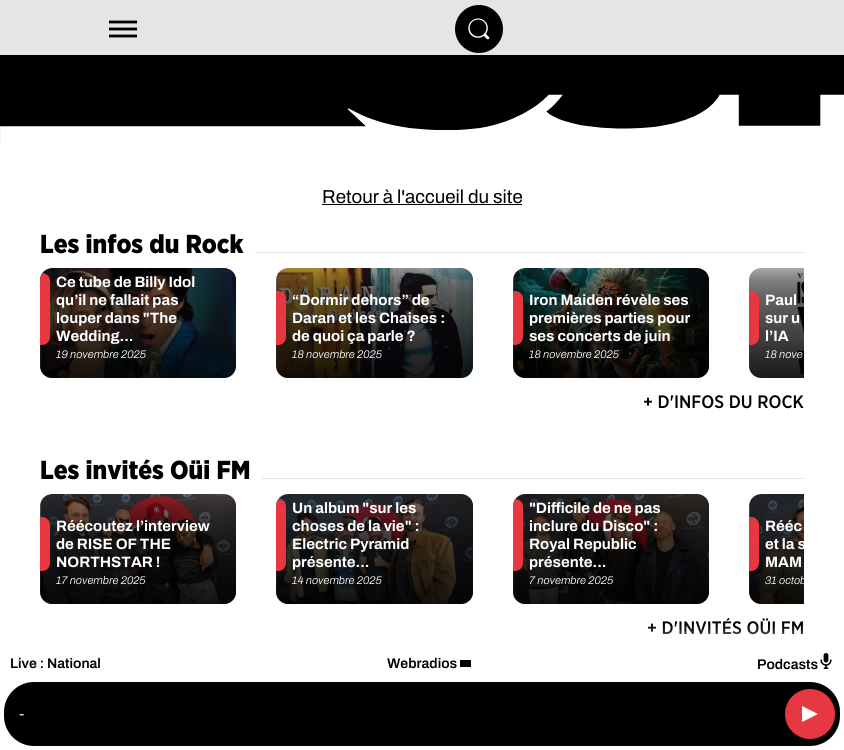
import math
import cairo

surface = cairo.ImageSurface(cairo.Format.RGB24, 844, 750)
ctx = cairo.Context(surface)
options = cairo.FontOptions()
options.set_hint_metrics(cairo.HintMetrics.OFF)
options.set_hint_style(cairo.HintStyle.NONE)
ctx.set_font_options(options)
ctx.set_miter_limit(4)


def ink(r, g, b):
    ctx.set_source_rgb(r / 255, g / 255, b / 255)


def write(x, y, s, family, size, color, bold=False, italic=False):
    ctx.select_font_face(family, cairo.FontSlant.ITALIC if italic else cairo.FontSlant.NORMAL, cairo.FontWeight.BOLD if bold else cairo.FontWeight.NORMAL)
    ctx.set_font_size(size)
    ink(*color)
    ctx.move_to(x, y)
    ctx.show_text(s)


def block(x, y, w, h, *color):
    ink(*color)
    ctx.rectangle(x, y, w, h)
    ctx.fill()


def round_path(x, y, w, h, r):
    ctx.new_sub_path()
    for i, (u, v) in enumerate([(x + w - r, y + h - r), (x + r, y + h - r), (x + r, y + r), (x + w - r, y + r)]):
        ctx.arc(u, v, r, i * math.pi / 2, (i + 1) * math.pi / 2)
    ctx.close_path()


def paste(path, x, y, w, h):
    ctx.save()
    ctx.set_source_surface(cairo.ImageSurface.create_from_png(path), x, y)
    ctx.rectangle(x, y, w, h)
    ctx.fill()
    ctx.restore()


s1 = dict(family="Archivo", size=18.75, color=(0, 0, 0))
s2 = dict(family="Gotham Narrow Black", size=26, color=(0, 0, 0))
s3 = dict(family="Archivo", size=15, color=(255, 255, 255), bold=True)
s4 = dict(family="Archivo Light", size=11, color=(255, 255, 255), italic=True)
s5 = dict(family="Gotham Narrow Medium", size=18, color=(0, 0, 0))
s6 = dict(family="Archivo SemiBold", size=14, color=(0, 0, 0))
s7 = dict(family="Liberation Sans", size=16, color=(255, 255, 255))

ink(255, 255, 255)
ctx.paint()
block(0, 55, 844, 88, 0, 0, 0)
paste("pic1.png", 0, 94, 844, 49)
write(322, 203, "Retour à l'accueil du site", **s1)
block(322, 204, 200, 1, 0, 0, 0)
write(40, 253, "Les infos du Rock", **s2)
block(255, 252, 549, 1, 229, 229, 229)
paste("pic2.png", 40, 268, 196, 110)
gradient = cairo.LinearGradient(138, 221, 138, 378)
gradient.add_color_stop_rgba(0, 0, 0, 0, 0)
gradient.add_color_stop_rgba(0.3, 0, 0, 0, 0.5)
gradient.add_color_stop_rgba(0.4, 0, 0, 0, 0.6)
gradient.add_color_stop_rgba(1, 0, 0, 0, 0.9)
ctx.set_source(gradient)
round_path(40, 268, 196, 110, 12)
ctx.fill()
ctx.save()
round_path(40, 268, 196, 110, 12)
ctx.clip()
ink(231, 55, 65)
ctx.new_path()
ctx.move_to(40, 273)
ctx.line_to(42, 273)
ctx.curve_to(46.5, 273, 50, 276.5, 50, 281)
ctx.line_to(50, 337)
ctx.curve_to(50, 341.5, 46.5, 345, 42, 345)
ctx.line_to(40, 345)
ctx.close_path()
ctx.fill()
ctx.restore()
write(56, 287, "Ce tube de Billy Idol", **s3)
write(56, 305, "qu’il ne fallait pas", **s3)
write(56, 323, "louper dans \"The", **s3)
write(56, 341, "Wedding...", **s3)
write(56, 358, "19 novembre 2025", **s4)
paste("pic3.png", 276, 268, 197, 110)
gradient = cairo.LinearGradient(375, 239, 375, 378)
gradient.add_color_stop_rgba(0, 0, 0, 0, 0)
gradient.add_color_stop_rgba(0.3, 0, 0, 0, 0.5)
gradient.add_color_stop_rgba(0.4, 0, 0, 0, 0.6)
gradient.add_color_stop_rgba(1, 0, 0, 0, 0.9)
ctx.set_source(gradient)
round_path(276, 268, 197, 110, 12)
ctx.fill()
ink(231, 55, 65)
ctx.new_path()
ctx.move_to(276, 291)
ctx.line_to(278, 291)
ctx.curve_to(282.5, 291, 286, 294.5, 286, 299)
ctx.line_to(286, 337)
ctx.curve_to(286, 341.5, 282.5, 345, 278, 345)
ctx.line_to(276, 345)
ctx.close_path()
ctx.fill()
write(292, 305, "“Dormir dehors” de", **s3)
write(292, 323, "Daran et les Chaises :", **s3)
write(292, 341, "de quoi ça parle ?", **s3)
write(292, 358, "18 novembre 2025", **s4)
paste("pic4.png", 513, 268, 196, 110)
gradient = cairo.LinearGradient(611, 239, 611, 378)
gradient.add_color_stop_rgba(0, 0, 0, 0, 0)
gradient.add_color_stop_rgba(0.3, 0, 0, 0, 0.5)
gradient.add_color_stop_rgba(0.4, 0, 0, 0, 0.6)
gradient.add_color_stop_rgba(1, 0, 0, 0, 0.9)
ctx.set_source(gradient)
round_path(513, 268, 196, 110, 12)
ctx.fill()
ink(231, 55, 65)
ctx.new_path()
ctx.move_to(513, 291)
ctx.line_to(515, 291)
ctx.curve_to(519.5, 291, 523, 294.5, 523, 299)
ctx.line_to(523, 337)
ctx.curve_to(523, 341.5, 519.5, 345, 515, 345)
ctx.line_to(513, 345)
ctx.close_path()
ctx.fill()
write(529, 305, "Iron Maiden révèle ses", **s3)
write(529, 323, "premières parties pour", **s3)
write(529, 341, "ses concerts de juin", **s3)
write(529, 358, "18 novembre 2025", **s4)
paste("pic5.png", 796, 272, 8, 102)
gradient = cairo.LinearGradient(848, 239, 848, 378)
gradient.add_color_stop_rgba(0, 0, 0, 0, 0)
gradient.add_color_stop_rgba(0.3, 0, 0, 0, 0.5)
gradient.add_color_stop_rgba(0.4, 0, 0, 0, 0.6)
gradient.add_color_stop_rgba(1, 0, 0, 0, 0.9)
ctx.set_source(gradient)
ctx.new_path()
ctx.move_to(761, 268)
ctx.line_to(804, 268)
ctx.line_to(804, 378)
ctx.line_to(761, 378)
ctx.curve_to(754.5, 378, 749, 372.5, 749, 366)
ctx.line_to(749, 280)
ctx.curve_to(749, 273.5, 754.5, 268, 761, 268)
ctx.close_path()
ctx.fill()
ink(231, 55, 65)
ctx.new_path()
ctx.move_to(749, 291)
ctx.line_to(751, 291)
ctx.curve_to(755.5, 291, 759, 294.5, 759, 299)
ctx.line_to(759, 337)
ctx.curve_to(759, 341.5, 755.5, 345, 751, 345)
ctx.line_to(749, 345)
ctx.close_path()
ctx.fill()
write(765, 305, "Paul", **s3)
write(765, 323, "sur u", **s3)
write(765, 341, "l’IA", **s3)
write(765, 358, "18 nove", **s4)
write(643, 408, "+ D'INFOS DU ROCK", **s5)
write(40, 479, "Les invités Oüi FM", **s2)
block(262, 478, 542, 1, 229, 229, 229)
paste("pic6.png", 40, 494, 196, 110)
gradient = cairo.LinearGradient(138, 465, 138, 604)
gradient.add_color_stop_rgba(0, 0, 0, 0, 0)
gradient.add_color_stop_rgba(0.3, 0, 0, 0, 0.5)
gradient.add_color_stop_rgba(0.4, 0, 0, 0, 0.6)
gradient.add_color_stop_rgba(1, 0, 0, 0, 0.9)
ctx.set_source(gradient)
round_path(40, 494, 196, 110, 12)
ctx.fill()
ink(231, 55, 65)
ctx.new_path()
ctx.move_to(40, 517)
ctx.line_to(42, 517)
ctx.curve_to(46.5, 517, 50, 520.5, 50, 525)
ctx.line_to(50, 563)
ctx.curve_to(50, 567.5, 46.5, 571, 42, 571)
ctx.line_to(40, 571)
ctx.close_path()
ctx.fill()
write(56, 531, "Réécoutez l’interview", **s3)
write(56, 549, "de RISE OF THE", **s3)
write(56, 567, "NORTHSTAR !", **s3)
write(56, 584, "17 novembre 2025", **s4)
paste("pic7.png", 276, 494, 197, 110)
gradient = cairo.LinearGradient(375, 447, 375, 604)
gradient.add_color_stop_rgba(0, 0, 0, 0, 0)
gradient.add_color_stop_rgba(0.3, 0, 0, 0, 0.5)
gradient.add_color_stop_rgba(0.4, 0, 0, 0, 0.6)
gradient.add_color_stop_rgba(1, 0, 0, 0, 0.9)
ctx.set_source(gradient)
round_path(276, 494, 197, 110, 12)
ctx.fill()
ctx.save()
round_path(276, 494, 197, 110, 12)
ctx.clip()
ink(231, 55, 65)
ctx.new_path()
ctx.move_to(276, 499)
ctx.line_to(278, 499)
ctx.curve_to(282.5, 499, 286, 502.5, 286, 507)
ctx.line_to(286, 563)
ctx.curve_to(286, 567.5, 282.5, 571, 278, 571)
ctx.line_to(276, 571)
ctx.close_path()
ctx.fill()
ctx.restore()
write(292, 513, "Un album \"sur les", **s3)
write(292, 531, "choses de la vie\" :", **s3)
write(292, 549, "Electric Pyramid", **s3)
write(292, 567, "présente...", **s3)
write(292, 584, "14 novembre 2025", **s4)
paste("pic8.png", 513, 494, 196, 110)
gradient = cairo.LinearGradient(611, 447, 611, 604)
gradient.add_color_stop_rgba(0, 0, 0, 0, 0)
gradient.add_color_stop_rgba(0.3, 0, 0, 0, 0.5)
gradient.add_color_stop_rgba(0.4, 0, 0, 0, 0.6)
gradient.add_color_stop_rgba(1, 0, 0, 0, 0.9)
ctx.set_source(gradient)
round_path(513, 494, 196, 110, 12)
ctx.fill()
ctx.save()
round_path(513, 494, 196, 110, 12)
ctx.clip()
ink(231, 55, 65)
ctx.new_path()
ctx.move_to(513, 499)
ctx.line_to(515, 499)
ctx.curve_to(519.5, 499, 523, 502.5, 523, 507)
ctx.line_to(523, 563)
ctx.curve_to(523, 567.5, 519.5, 571, 515, 571)
ctx.line_to(513, 571)
ctx.close_path()
ctx.fill()
ctx.restore()
write(529, 513, "\"Difficile de ne pas", **s3)
write(529, 531, "inclure du Disco\" :", **s3)
write(529, 549, "Royal Republic", **s3)
write(529, 567, "présente...", **s3)
write(529, 584, "7 novembre 2025", **s4)
paste("pic9.png", 749, 494, 55, 110)
gradient = cairo.LinearGradient(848, 465, 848, 604)
gradient.add_color_stop_rgba(0, 0, 0, 0, 0)
gradient.add_color_stop_rgba(0.3, 0, 0, 0, 0.5)
gradient.add_color_stop_rgba(0.4, 0, 0, 0, 0.6)
gradient.add_color_stop_rgba(1, 0, 0, 0, 0.9)
ctx.set_source(gradient)
ctx.new_path()
ctx.move_to(761, 494)
ctx.line_to(804, 494)
ctx.line_to(804, 604)
ctx.line_to(761, 604)
ctx.curve_to(754.5, 604, 749, 598.5, 749, 592)
ctx.line_to(749, 506)
ctx.curve_to(749, 499.5, 754.5, 494, 761, 494)
ctx.close_path()
ctx.fill()
ink(231, 55, 65)
ctx.new_path()
ctx.move_to(749, 517)
ctx.line_to(751, 517)
ctx.curve_to(755.5, 517, 759, 520.5, 759, 525)
ctx.line_to(759, 563)
ctx.curve_to(759, 567.5, 755.5, 571, 751, 571)
ctx.line_to(749, 571)
ctx.close_path()
ctx.fill()
write(765, 531, "Rééc", **s3)
ctx.save()
ctx.rectangle(40, 494, 764, 110)
ctx.clip()
write(765, 549, "et la s", **s3)
ctx.restore()
write(765, 567, "MAM", **s3)
ctx.save()
ctx.rectangle(40, 494, 764, 110)
ctx.clip()
write(765, 584, "31 octob", **s4)
ctx.restore()
write(647, 634, "+ D'INVITÉS OÜI FM", **s5)
block(0, 0, 844, 55, 229, 229, 229)
paste("pic10.png", 109, 20, 28, 18)
ink(0, 0, 0)
ctx.arc(479, 29, 23, 0, 2 * math.pi)
ctx.fill_preserve()
ctx.stroke()
paste("pic11.png", 468, 18, 22, 22)
gradient = cairo.LinearGradient(422, 624, 422, 680)
gradient.add_color_stop_rgba(0, 1, 1, 1, 0)
gradient.add_color_stop_rgba(0.11, 1, 1, 1, 0.1)
gradient.add_color_stop_rgba(0.32, 1, 1, 1, 0.6)
gradient.add_color_stop_rgba(0.43, 1, 1, 1, 0.8)
gradient.add_color_stop_rgba(1, 1, 1, 1, 1)
ctx.set_source(gradient)
ctx.rectangle(647, 625, 156, 10)
ctx.fill()
write(10, 668, "Live : National", **s6)
write(387, 668, "Webradios", **s6)
block(460, 660, 11, 7, 0, 0, 0)
write(757, 669, "Podcasts", **s6)
paste("pic12.png", 820, 653, 12, 16)
round_path(4, 682, 836, 64, 30)
ctx.fill()
write(19, 719, "-", **s7)
ink(231, 55, 65)
ctx.new_path()
ctx.arc(810, 714, 25, 0, 2 * math.pi)
ctx.fill()
ink(255, 255, 255)
ctx.new_path()
ctx.move_to(818, 714)
ctx.line_to(802, 722)
ctx.line_to(802, 706)
ctx.close_path()
ctx.fill()
surface.write_to_png("screenshot.png")
